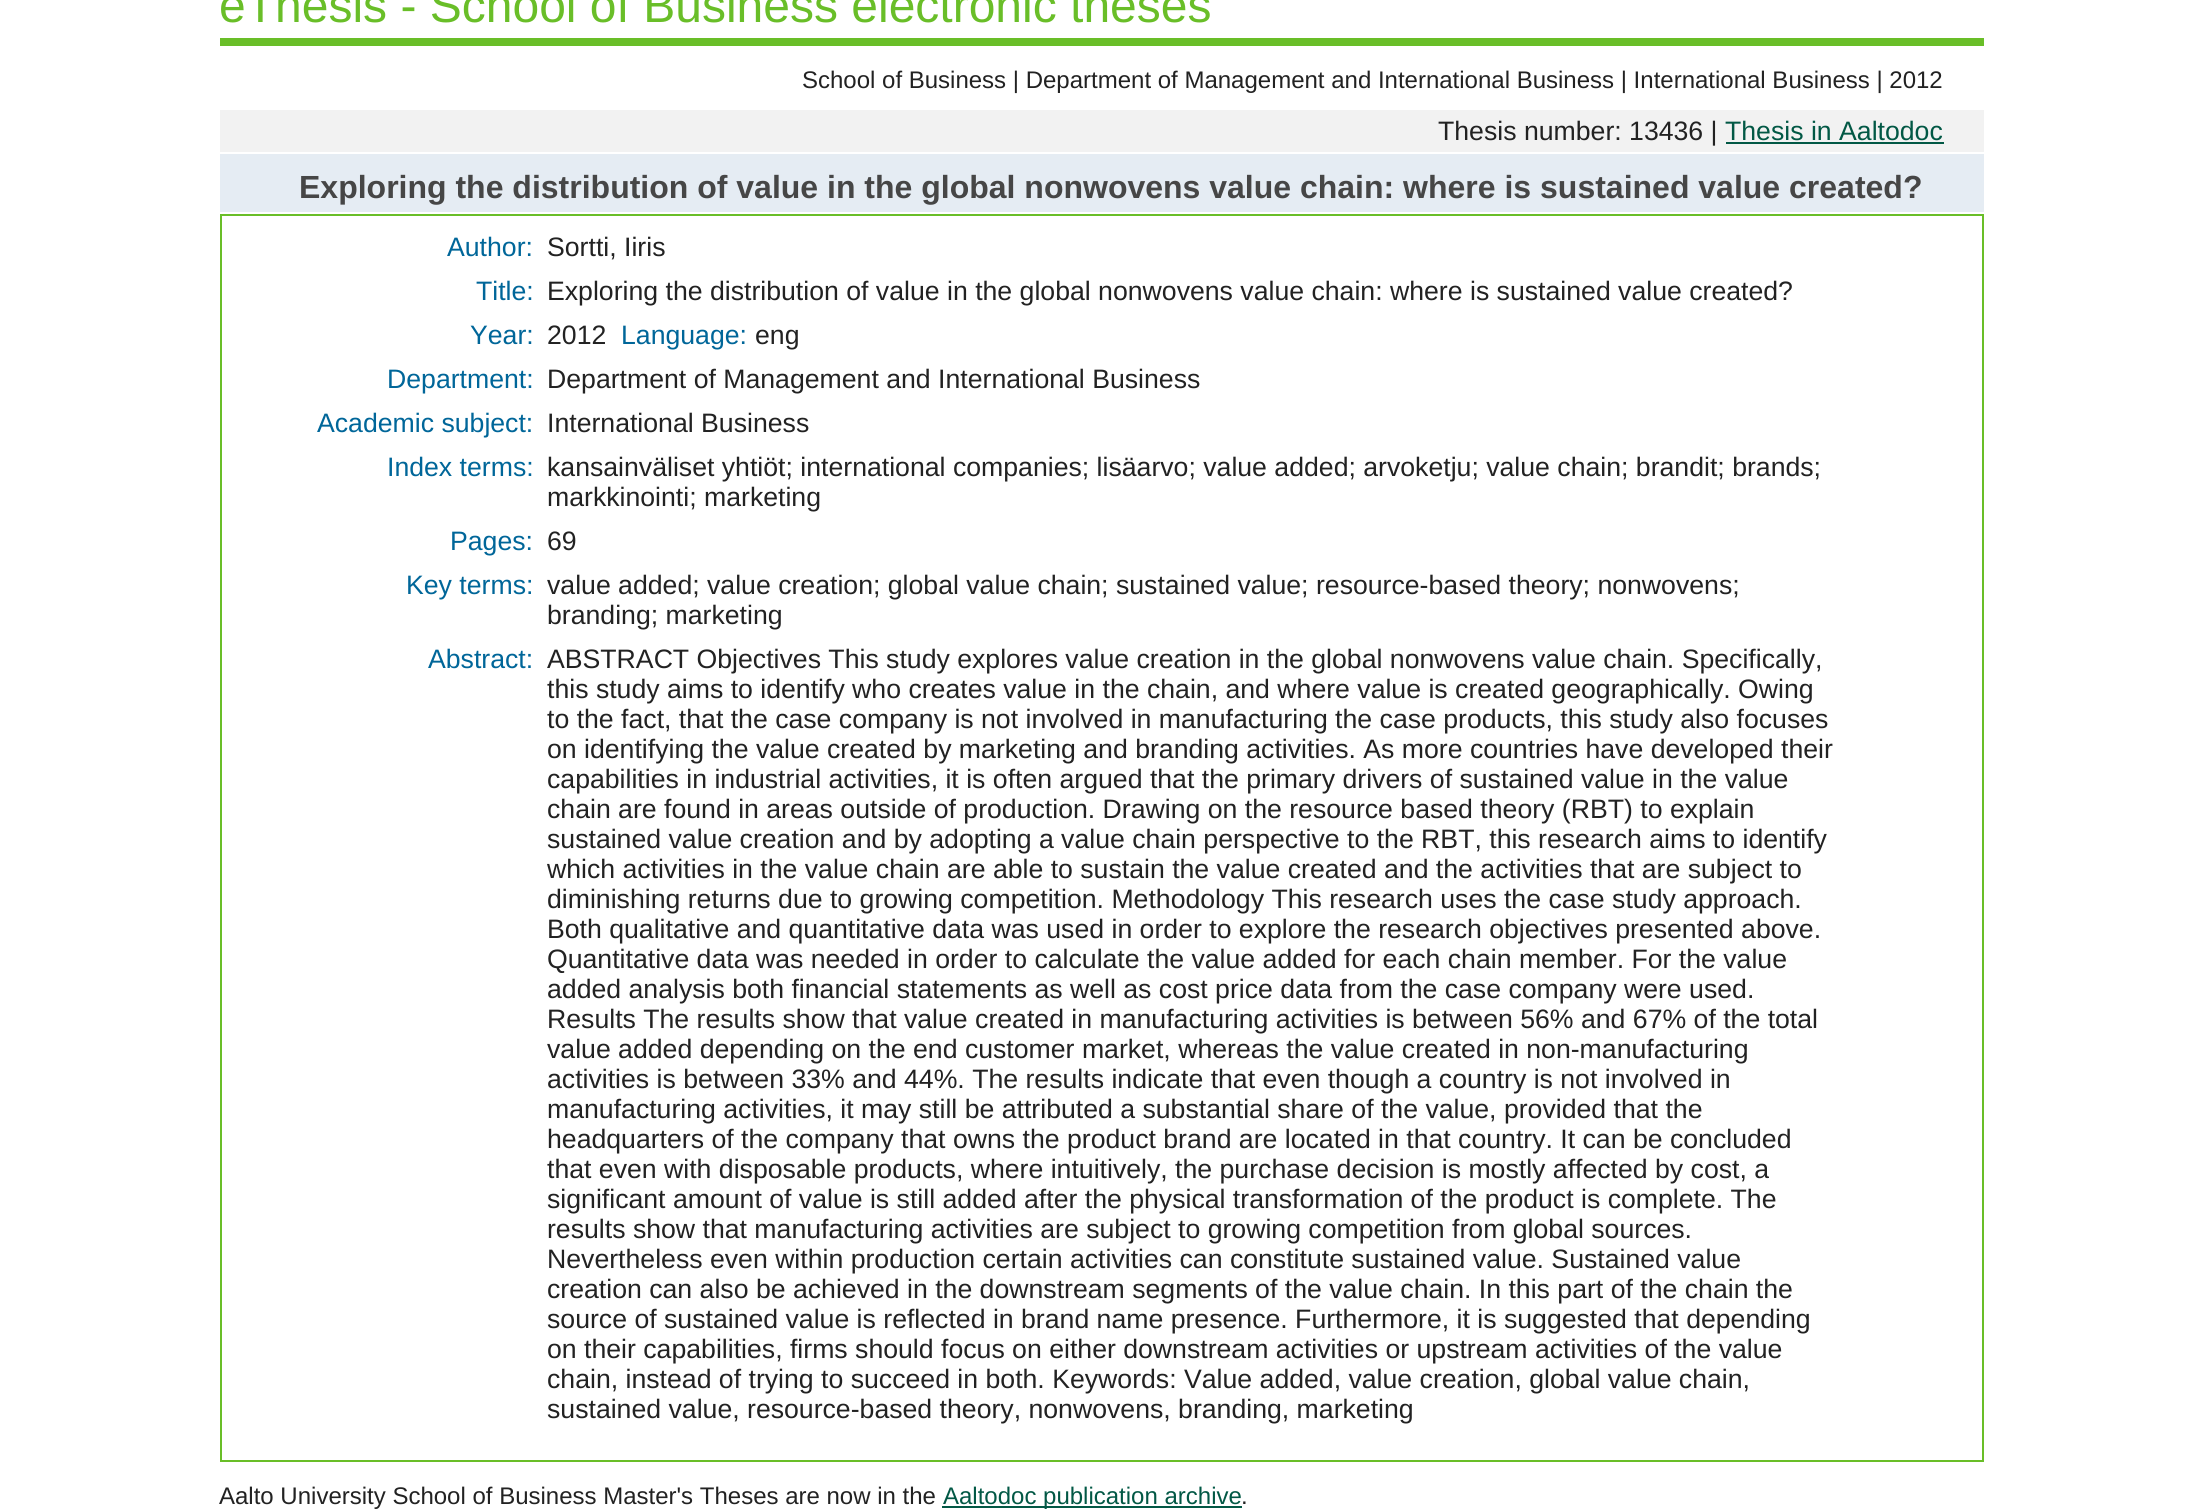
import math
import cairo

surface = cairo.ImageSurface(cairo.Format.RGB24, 2202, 1510)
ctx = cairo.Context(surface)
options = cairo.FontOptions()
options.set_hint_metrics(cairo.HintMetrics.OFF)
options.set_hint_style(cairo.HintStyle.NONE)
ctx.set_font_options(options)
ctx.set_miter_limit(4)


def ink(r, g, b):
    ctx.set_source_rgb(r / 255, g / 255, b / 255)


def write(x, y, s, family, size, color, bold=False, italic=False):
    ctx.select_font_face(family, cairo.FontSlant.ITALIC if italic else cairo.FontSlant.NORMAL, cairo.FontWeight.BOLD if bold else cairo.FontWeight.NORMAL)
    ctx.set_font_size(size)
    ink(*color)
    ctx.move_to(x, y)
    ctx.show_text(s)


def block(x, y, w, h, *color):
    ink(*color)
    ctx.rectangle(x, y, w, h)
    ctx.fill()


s1 = dict(family="Liberation Sans", size=48, color=(105, 190, 40))
s2 = dict(family="Liberation Sans", size=24, color=(34, 34, 34))
s3 = dict(family="Liberation Sans", size=26.65, color=(34, 34, 34))
s4 = dict(family="Liberation Sans", size=26.65, color=(2, 88, 69))
s5 = dict(family="Liberation Sans", size=32, color=(70, 70, 70), bold=True)
s6 = dict(family="Liberation Sans", size=26.65, color=(0, 102, 153))
s7 = dict(family="Liberation Sans", size=24, color=(2, 88, 69))

ink(255, 255, 255)
ctx.paint()
block(220, 38, 1764, 8, 105, 190, 40)
write(219, 22, "eThesis - School of Business electronic theses", **s1)
write(802, 88, "School of Business | Department of Management and International Business | International Business | 2012", **s2)
block(220, 110, 1764, 42, 242, 242, 242)
write(1438, 140, "Thesis number: 13436 |", **s3)
write(1725, 140, "Thesis in Aaltodoc", **s4)
block(1726, 142, 218, 2, 2, 88, 69)
block(220, 154, 1764, 58, 229, 236, 243)
write(299, 198, "Exploring the distribution of value in the global nonwovens value chain: where is sustained value created?", **s5)
ctx.rectangle(221, 215, 1762, 1246)
ink(105, 190, 40)
ctx.stroke()
write(447, 256, "Author:", **s6)
write(547, 256, "Sortti, Iiris", **s3)
write(476, 300, "Title:", **s6)
write(547, 300, "Exploring the distribution of value in the global nonwovens value chain: where is sustained value created?", **s3)
write(470, 344, "Year:", **s6)
write(547, 344, "2012", **s3)
write(621, 344, "Language:", **s6)
write(755, 344, "eng", **s3)
write(387, 388, "Department:", **s6)
write(547, 388, "Department of Management and International Business", **s3)
write(317, 432, "Academic subject:", **s6)
write(547, 432, "International Business", **s3)
write(387, 476, "Index terms:", **s6)
write(547, 476, "kansainväliset yhtiöt; international companies; lisäarvo; value added; arvoketju; value chain; brandit; brands;", **s3)
write(547, 506, "markkinointi; marketing", **s3)
write(450, 550, "Pages:", **s6)
write(547, 550, "69", **s3)
write(406, 594, "Key terms:", **s6)
write(547, 594, "value added; value creation; global value chain; sustained value; resource-based theory; nonwovens;", **s3)
write(547, 624, "branding; marketing", **s3)
write(428, 668, "Abstract:", **s6)
write(547, 668, "ABSTRACT Objectives This study explores value creation in the global nonwovens value chain. Specifically,", **s3)
write(547, 698, "this study aims to identify who creates value in the chain, and where value is created geographically. Owing", **s3)
write(547, 728, "to the fact, that the case company is not involved in manufacturing the case products, this study also focuses", **s3)
write(547, 758, "on identifying the value created by marketing and branding activities. As more countries have developed their", **s3)
write(547, 788, "capabilities in industrial activities, it is often argued that the primary drivers of sustained value in the value", **s3)
write(547, 818, "chain are found in areas outside of production. Drawing on the resource based theory (RBT) to explain", **s3)
write(547, 848, "sustained value creation and by adopting a value chain perspective to the RBT, this research aims to identify", **s3)
write(547, 878, "which activities in the value chain are able to sustain the value created and the activities that are subject to", **s3)
write(547, 908, "diminishing returns due to growing competition. Methodology This research uses the case study approach.", **s3)
write(547, 938, "Both qualitative and quantitative data was used in order to explore the research objectives presented above.", **s3)
write(547, 968, "Quantitative data was needed in order to calculate the value added for each chain member. For the value", **s3)
write(547, 998, "added analysis both financial statements as well as cost price data from the case company were used.", **s3)
write(547, 1028, "Results The results show that value created in manufacturing activities is between 56% and 67% of the total", **s3)
write(547, 1058, "value added depending on the end customer market, whereas the value created in non-manufacturing", **s3)
write(547, 1088, "activities is between 33% and 44%. The results indicate that even though a country is not involved in", **s3)
write(547, 1118, "manufacturing activities, it may still be attributed a substantial share of the value, provided that the", **s3)
write(547, 1148, "headquarters of the company that owns the product brand are located in that country. It can be concluded", **s3)
write(547, 1178, "that even with disposable products, where intuitively, the purchase decision is mostly affected by cost, a", **s3)
write(547, 1208, "significant amount of value is still added after the physical transformation of the product is complete. The", **s3)
write(547, 1238, "results show that manufacturing activities are subject to growing competition from global sources.", **s3)
write(547, 1268, "Nevertheless even within production certain activities can constitute sustained value. Sustained value", **s3)
write(547, 1298, "creation can also be achieved in the downstream segments of the value chain. In this part of the chain the", **s3)
write(547, 1328, "source of sustained value is reflected in brand name presence. Furthermore, it is suggested that depending", **s3)
write(547, 1358, "on their capabilities, firms should focus on either downstream activities or upstream activities of the value", **s3)
write(547, 1388, "chain, instead of trying to succeed in both. Keywords: Value added, value creation, global value chain,", **s3)
write(547, 1418, "sustained value, resource-based theory, nonwovens, branding, marketing", **s3)
write(219, 1504, "Aalto University School of Business Master's Theses are now in the", **s2)
block(942, 1506, 300, 2, 2, 88, 69)
write(943, 1504, "Aaltodoc publication archive", **s7)
write(1241, 1504, ".", **s2)
surface.write_to_png("screenshot.png")
